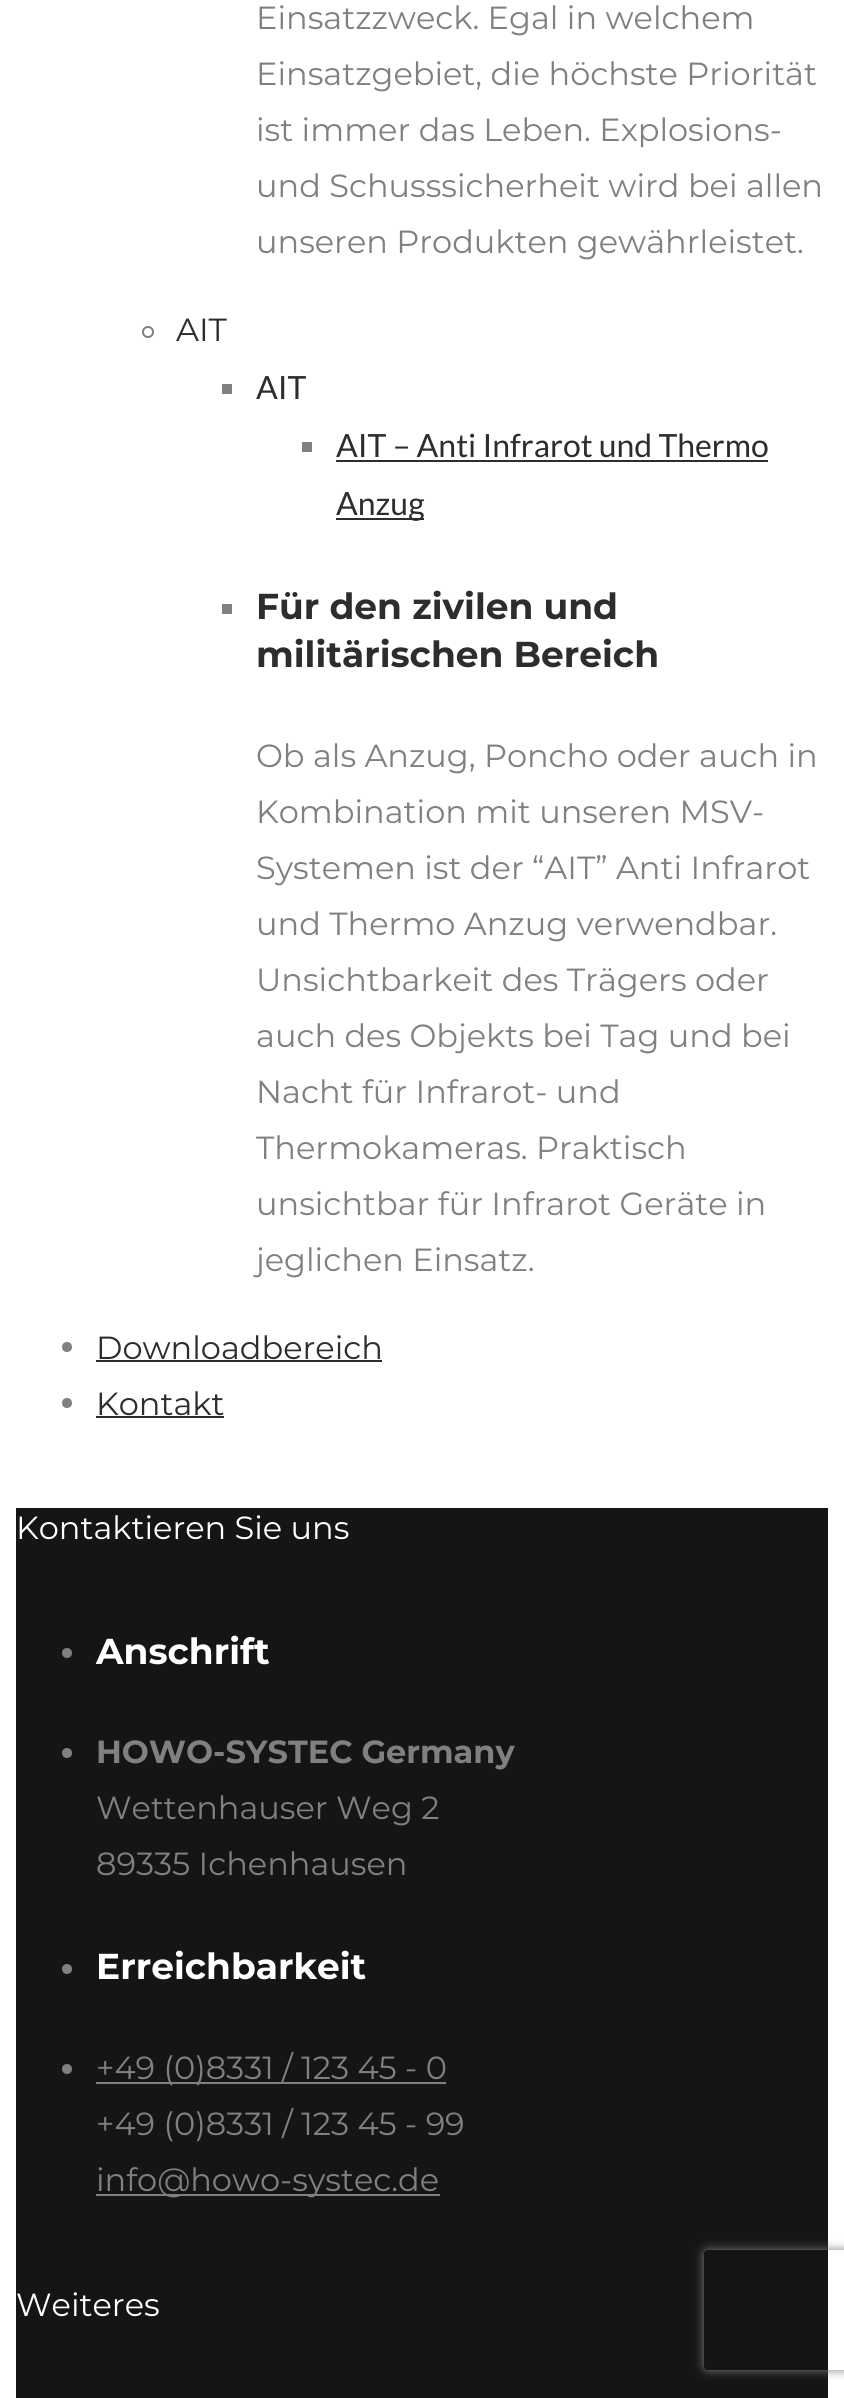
import math
import cairo

surface = cairo.ImageSurface(cairo.Format.RGB24, 844, 2398)
ctx = cairo.Context(surface)
options = cairo.FontOptions()
options.set_hint_metrics(cairo.HintMetrics.OFF)
options.set_hint_style(cairo.HintStyle.NONE)
ctx.set_font_options(options)
ctx.set_miter_limit(4)


def ink(r, g, b):
    ctx.set_source_rgb(r / 255, g / 255, b / 255)


def write(x, y, s, family, size, color, bold=False, italic=False):
    ctx.select_font_face(family, cairo.FontSlant.ITALIC if italic else cairo.FontSlant.NORMAL, cairo.FontWeight.BOLD if bold else cairo.FontWeight.NORMAL)
    ctx.set_font_size(size)
    ink(*color)
    ctx.move_to(x, y)
    ctx.show_text(s)


def block(x, y, w, h, *color):
    ink(*color)
    ctx.rectangle(x, y, w, h)
    ctx.fill()


def round_path(x, y, w, h, r):
    ctx.new_sub_path()
    for i, (u, v) in enumerate([(x + w - r, y + h - r), (x + r, y + h - r), (x + r, y + r), (x + w - r, y + r)]):
        ctx.arc(u, v, r, i * math.pi / 2, (i + 1) * math.pi / 2)
    ctx.close_path()


def blur_box(x, y, w, h, r, blur, alpha):
    ctx.push_group_with_content(cairo.Content.ALPHA)
    ctx.set_operator(cairo.Operator.SOURCE)
    for i in range(15, -16, -2):
        e = blur * i / 6
        if min(w, h) + 2 * e > 0:
            ctx.set_source_rgba(0, 0, 0, alpha * math.erfc((i - 1) / 8.5) / 2)
            round_path(x - e, y - e, w + 2 * e, h + 2 * e, max(0, min(r + e + blur * .6, min(w, h) / 2 + e)))
            ctx.fill()
    ctx.mask(ctx.pop_group())


s1 = dict(family="Montserrat", size=32, color=(128, 128, 128))
s2 = dict(family="Montserrat", size=32, color=(45, 45, 45))
s3 = dict(family="Lato", size=32, color=(45, 45, 45))
s4 = dict(family="Montserrat", size=36, color=(45, 45, 45), bold=True)
s5 = dict(family="Montserrat", size=32, color=(255, 255, 255))
s6 = dict(family="Montserrat", size=36, color=(255, 255, 255), bold=True)
s7 = dict(family="Montserrat", size=32, color=(128, 128, 128), bold=True)

ink(255, 255, 255)
ctx.paint()
write(256, 29, "Einsatzzweck. Egal in welchem", **s1)
write(256, 85, "Einsatzgebiet, die höchste Priorität", **s1)
write(256, 141, "ist immer das Leben. Explosions-", **s1)
write(256, 197, "und Schusssicherheit wird bei allen", **s1)
write(256, 253, "unseren Produkten gewährleistet.", **s1)
ctx.new_path()
ctx.arc(148, 332, 5, 0, 2 * math.pi)
ctx.stroke()
write(176, 341, "AIT", **s2)
block(222, 384, 10, 10, 128, 128, 128)
write(256, 399, "AIT", **s3)
block(302, 442, 10, 10, 128, 128, 128)
write(336, 457, "AIT – Anti Infrarot und Thermo", **s3)
block(336, 460, 432, 2, 45, 45, 45)
block(336, 518, 88, 2, 45, 45, 45)
write(336, 515, "Anzug", **s3)
block(222, 604, 10, 10, 128, 128, 128)
write(256, 619, "Für den zivilen und", **s4)
write(256, 667, "militärischen Bereich", **s4)
write(256, 767, "Ob als Anzug, Poncho oder auch in", **s1)
write(256, 823, "Kombination mit unseren MSV-", **s1)
write(256, 879, "Systemen ist der “AIT” Anti Infrarot", **s1)
write(256, 935, "und Thermo Anzug verwendbar.", **s1)
write(256, 991, "Unsichtbarkeit des Trägers oder", **s1)
write(256, 1047, "auch des Objekts bei Tag und bei", **s1)
write(256, 1103, "Nacht für Infrarot- und", **s1)
write(256, 1159, "Thermokameras. Praktisch", **s1)
write(256, 1215, "unsichtbar für Infrarot Geräte in", **s1)
write(256, 1271, "jeglichen Einsatz.", **s1)
ctx.new_path()
ctx.arc(67, 1347, 5, 0, 2 * math.pi)
ctx.fill()
write(96, 1359, "Downloadbereich", **s2)
block(96, 1360, 286, 2, 45, 45, 45)
ink(128, 128, 128)
ctx.new_path()
ctx.arc(67, 1403, 5, 0, 2 * math.pi)
ctx.fill()
write(96, 1415, "Kontakt", **s2)
block(96, 1416, 128, 2, 45, 45, 45)
block(16, 1508, 812, 890, 21, 21, 21)
write(16, 1539, "Kontaktieren Sie uns", **s5)
ink(128, 128, 128)
ctx.new_path()
ctx.arc(67, 1653, 5, 0, 2 * math.pi)
ctx.fill()
write(96, 1664, "Anschrift", **s6)
ink(128, 128, 128)
ctx.new_path()
ctx.arc(67, 1753, 5, 0, 2 * math.pi)
ctx.fill()
write(96, 1763, "HOWO-SYSTEC Germany", **s7)
write(96, 1819, "Wettenhauser Weg 2", **s1)
write(96, 1875, "89335 Ichenhausen", **s1)
ctx.new_path()
ctx.arc(67, 1969, 5, 0, 2 * math.pi)
ctx.fill()
write(96, 1979, "Erreichbarkeit", **s6)
ink(128, 128, 128)
ctx.new_path()
ctx.arc(67, 2069, 5, 0, 2 * math.pi)
ctx.fill()
block(96, 2082, 350, 2, 128, 128, 128)
write(96, 2079, "+49 (0)8331 / 123 45 - 0", **s1)
write(96, 2135, "+49 (0)8331 / 123 45 - 99", **s1)
block(96, 2194, 344, 2, 128, 128, 128)
write(96, 2191, "info@howo-systec.de", **s1)
write(16, 2316, "Weiteres", **s5)
ctx.save()
ctx.set_fill_rule(cairo.FillRule.EVEN_ODD)
ctx.new_path()
ctx.move_to(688, 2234)
ctx.line_to(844, 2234)
ctx.line_to(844, 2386)
ctx.line_to(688, 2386)
ctx.close_path()
ctx.move_to(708, 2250)
ctx.line_to(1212, 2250)
ctx.curve_to(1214, 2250, 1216, 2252, 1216, 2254)
ctx.line_to(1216, 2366)
ctx.curve_to(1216, 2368, 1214, 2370, 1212, 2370)
ctx.line_to(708, 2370)
ctx.curve_to(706, 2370, 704, 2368, 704, 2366)
ctx.line_to(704, 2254)
ctx.curve_to(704, 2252, 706, 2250, 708, 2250)
ctx.close_path()
ctx.clip()
ink(128, 128, 128)
blur_box(704, 2250, 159, 120, 4, 5, 1)
ctx.restore()
surface.write_to_png("screenshot.png")
